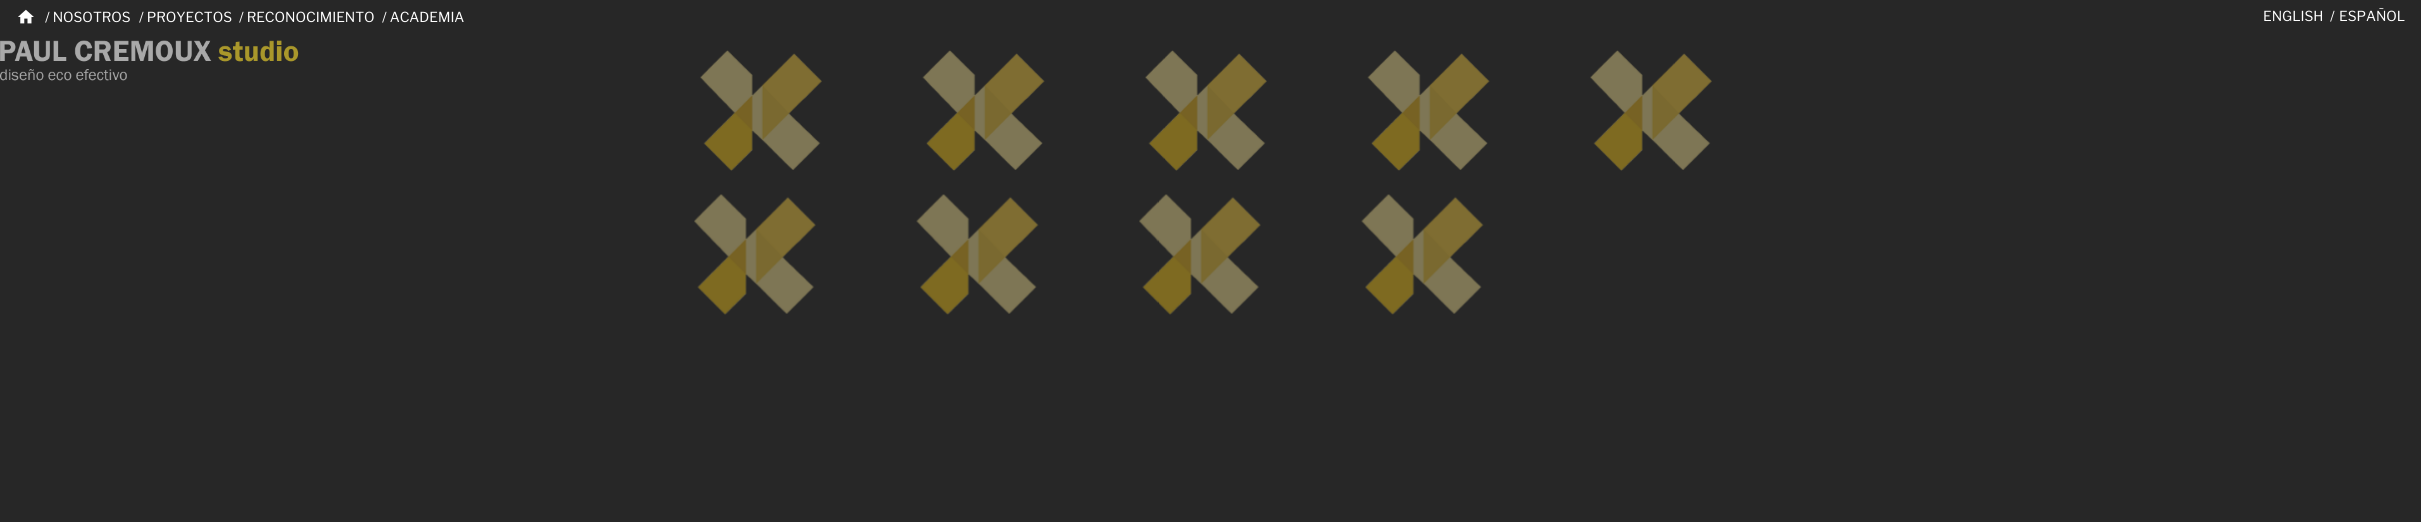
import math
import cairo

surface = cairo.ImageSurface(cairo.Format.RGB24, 2421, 522)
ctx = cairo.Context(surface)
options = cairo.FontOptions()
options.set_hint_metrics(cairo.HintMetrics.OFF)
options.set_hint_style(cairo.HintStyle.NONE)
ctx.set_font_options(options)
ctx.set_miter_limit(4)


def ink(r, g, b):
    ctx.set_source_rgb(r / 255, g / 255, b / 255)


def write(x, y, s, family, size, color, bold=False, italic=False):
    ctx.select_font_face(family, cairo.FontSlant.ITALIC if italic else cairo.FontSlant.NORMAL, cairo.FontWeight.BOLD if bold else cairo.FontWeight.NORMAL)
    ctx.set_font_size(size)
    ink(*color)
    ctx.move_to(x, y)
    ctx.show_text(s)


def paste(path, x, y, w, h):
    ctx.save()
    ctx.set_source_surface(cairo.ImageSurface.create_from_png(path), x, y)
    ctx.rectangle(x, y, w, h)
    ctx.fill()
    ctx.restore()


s1 = dict(family="Libre Franklin", size=13.75, color=(255, 255, 255))

ink(39, 39, 39)
ctx.paint()
paste("pic1.png", 18, 9, 16, 15)
write(45, 22, "/ NOSOTROS", **s1)
write(139, 22, "/ PROYECTOS", **s1)
write(239, 22, "/ RECONOCIMIENTO", **s1)
write(382, 22, "/ ACADEMIA", **s1)
write(2263, 21, "ENGLISH", **s1)
write(2330, 21, "/", **s1)
write(2339, 21, "ESPAÑOL", **s1)
paste("pic2.png", 0, 40, 299, 41)
paste("pic3.png", 700, 50, 122, 121)
paste("pic4.png", 922, 50, 123, 121)
paste("pic5.png", 1145, 50, 122, 121)
paste("pic4.png", 1367, 50, 123, 121)
paste("pic6.png", 1590, 50, 122, 121)
paste("pic7.png", 694, 194, 122, 121)
paste("pic8.png", 916, 194, 123, 121)
paste("pic9.png", 1139, 194, 122, 121)
paste("pic8.png", 1361, 194, 123, 121)
surface.write_to_png("screenshot.png")
